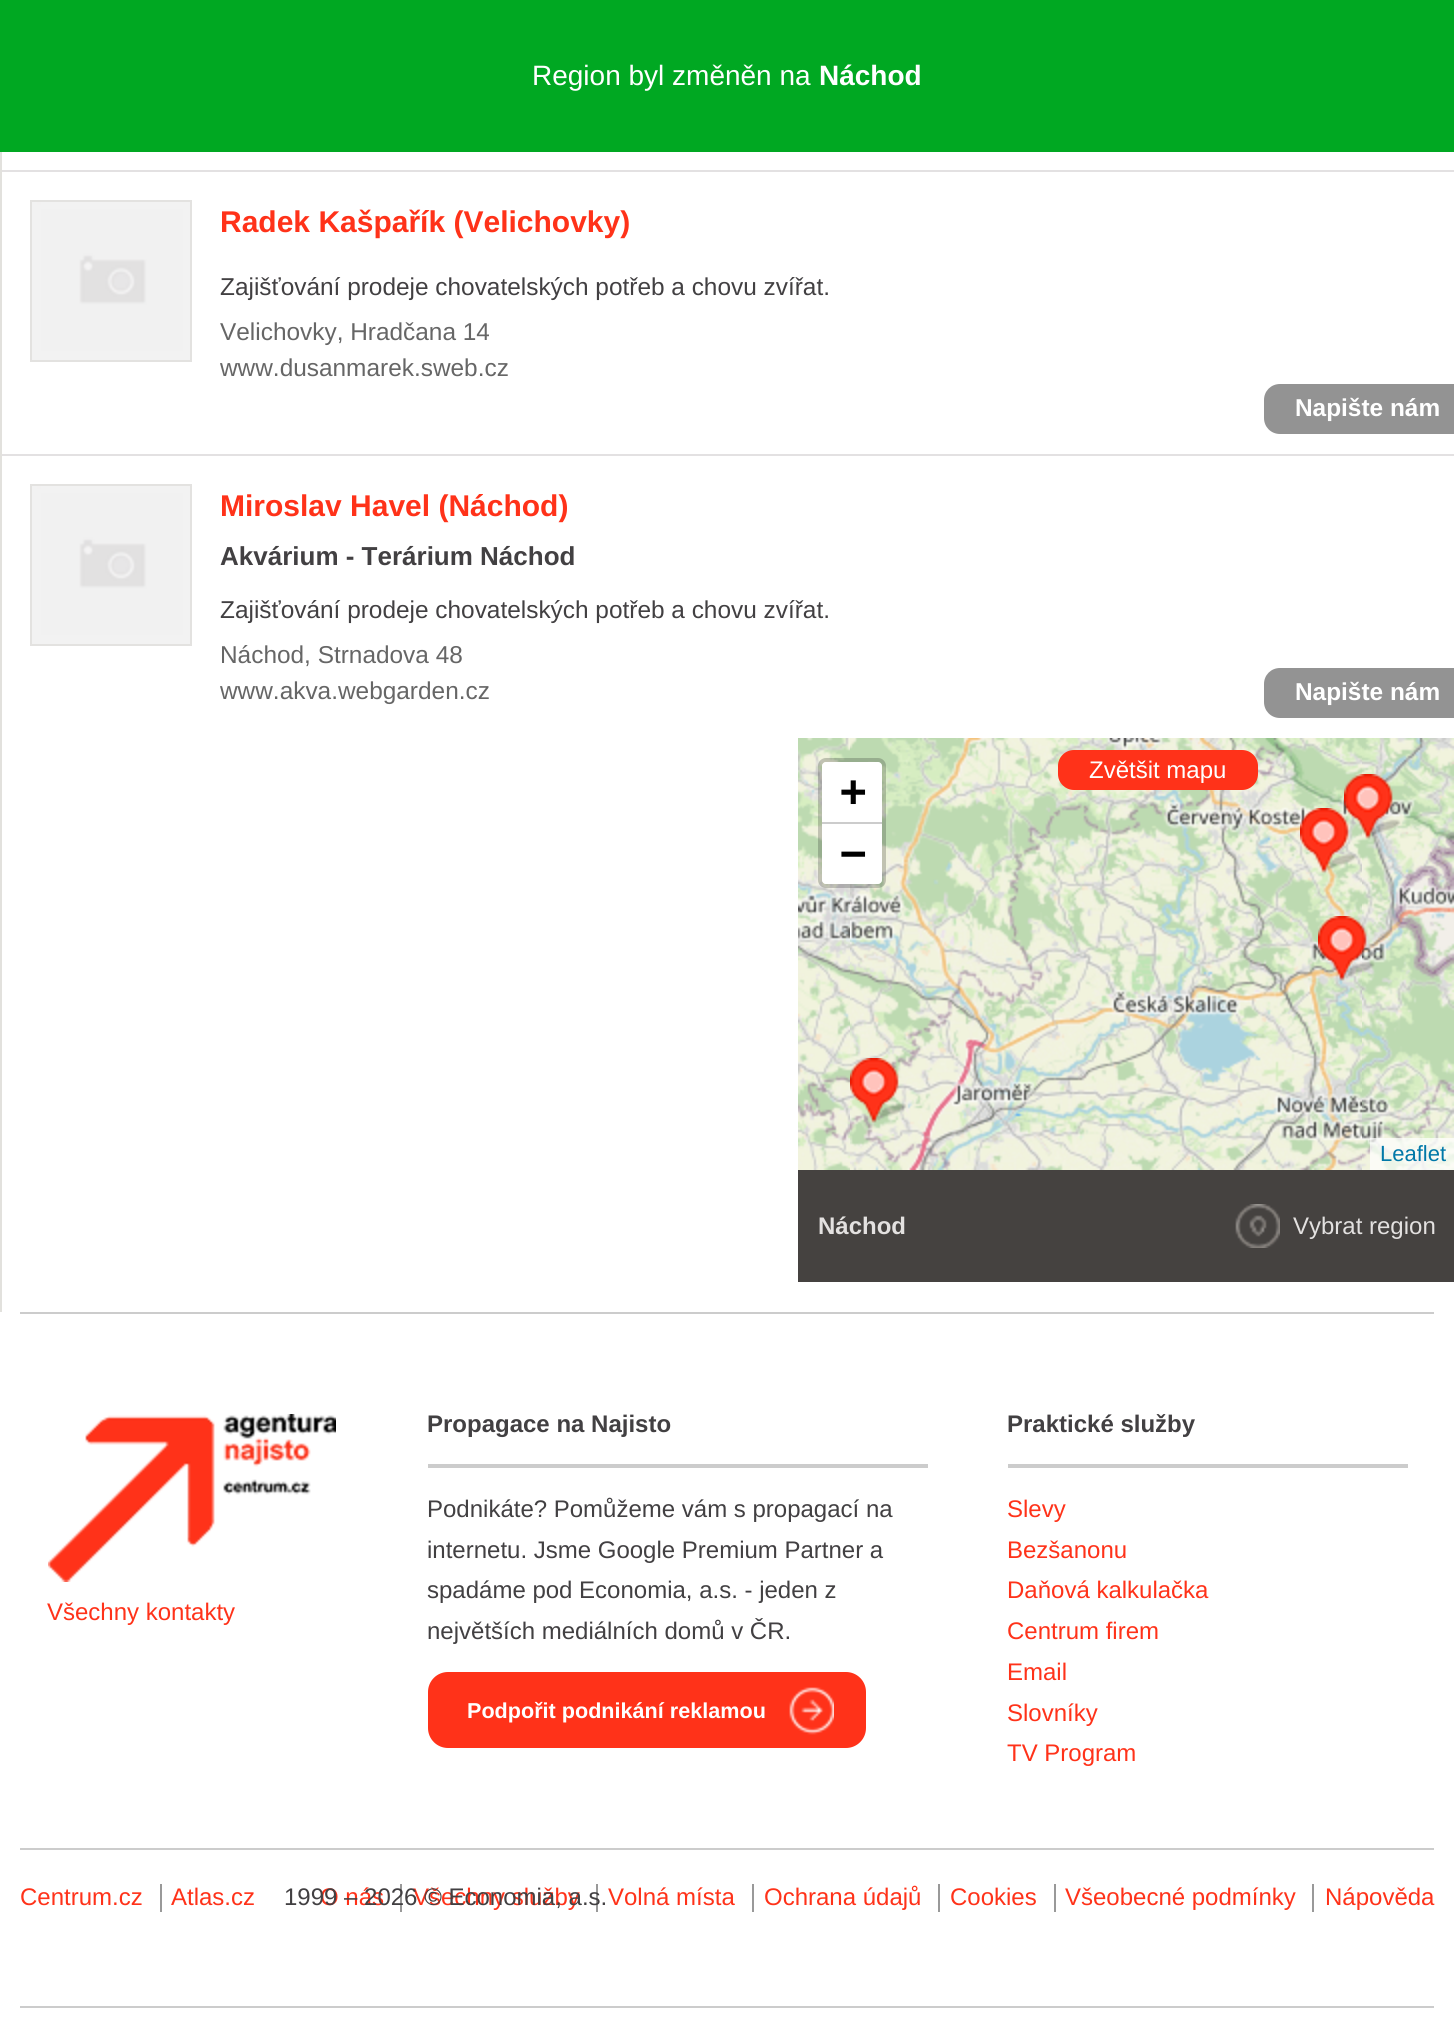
import math
import cairo

surface = cairo.ImageSurface(cairo.Format.RGB24, 1454, 2018)
ctx = cairo.Context(surface)
options = cairo.FontOptions()
options.set_hint_metrics(cairo.HintMetrics.OFF)
options.set_hint_style(cairo.HintStyle.NONE)
ctx.set_font_options(options)
ctx.set_miter_limit(4)


def ink(r, g, b):
    ctx.set_source_rgb(r / 255, g / 255, b / 255)


def write(x, y, s, family, size, color, bold=False, italic=False):
    ctx.select_font_face(family, cairo.FontSlant.ITALIC if italic else cairo.FontSlant.NORMAL, cairo.FontWeight.BOLD if bold else cairo.FontWeight.NORMAL)
    ctx.set_font_size(size)
    ink(*color)
    ctx.move_to(x, y)
    ctx.show_text(s)


def block(x, y, w, h, *color):
    ink(*color)
    ctx.rectangle(x, y, w, h)
    ctx.fill()


def round_path(x, y, w, h, r):
    ctx.new_sub_path()
    for i, (u, v) in enumerate([(x + w - r, y + h - r), (x + r, y + h - r), (x + r, y + r), (x + w - r, y + r)]):
        ctx.arc(u, v, r, i * math.pi / 2, (i + 1) * math.pi / 2)
    ctx.close_path()


def paste(path, x, y, w, h):
    ctx.save()
    ctx.set_source_surface(cairo.ImageSurface.create_from_png(path), x, y)
    ctx.rectangle(x, y, w, h)
    ctx.fill()
    ctx.restore()


s1 = dict(family="Liberation Sans", size=28, color=(255, 255, 255))
s2 = dict(family="Liberation Sans", size=28, color=(255, 255, 255), bold=True)
s3 = dict(family="Liberation Sans", size=30, color=(255, 50, 25), bold=True)
s4 = dict(family="Liberation Sans", size=24.4, color=(66, 64, 66))
s5 = dict(family="Liberation Sans", size=24.4, color=(102, 102, 102))
s6 = dict(family="Liberation Sans", size=24.4, color=(255, 255, 255), bold=True)
s7 = dict(family="Liberation Sans", size=26, color=(66, 64, 66), bold=True)
s8 = dict(family="Liberation Sans", size=24, color=(255, 255, 255))
s9 = dict(family="DejaVu Sans Mono", size=44, color=(0, 0, 0), bold=True)
s10 = dict(family="Liberation Sans", size=22, color=(0, 120, 168))
s11 = dict(family="Liberation Sans", size=24, color=(227, 225, 224), bold=True)
s12 = dict(family="Liberation Sans", size=24, color=(227, 225, 224))
s13 = dict(family="Liberation Sans", size=24, color=(255, 50, 25))
s14 = dict(family="Liberation Sans", size=24, color=(66, 64, 66), bold=True)
s15 = dict(family="Liberation Sans", size=24, color=(66, 64, 66))
s16 = dict(family="Liberation Sans", size=21.6, color=(255, 255, 255), bold=True)

ink(255, 255, 255)
ctx.paint()
block(0, 0, 1454, 152, 0, 168, 34)
write(532, 85, "Region byl změněn na", **s1)
write(819, 85, "Náchod", **s2)
block(0, 152, 2, 1160, 226, 225, 221)
block(2, 170, 1452, 2, 227, 225, 226)
ctx.rectangle(31, 201, 160, 160)
ink(227, 226, 224)
ctx.stroke()
paste("pic1.png", 32, 202, 158, 158)
write(220, 232, "Radek Kašpařík (Velichovky)", **s3)
write(220, 295, "Zajišťování prodeje chovatelských potřeb a chovu zvířat.", **s4)
write(220, 340, "Velichovky, Hradčana 14", **s5)
write(220, 376, "www.dusanmarek.sweb.cz", **s5)
ink(147, 147, 147)
ctx.new_path()
ctx.move_to(1280, 384)
ctx.line_to(1454, 384)
ctx.line_to(1454, 434)
ctx.line_to(1280, 434)
ctx.curve_to(1271, 434, 1264, 427, 1264, 418)
ctx.line_to(1264, 400)
ctx.curve_to(1264, 391, 1271, 384, 1280, 384)
ctx.close_path()
ctx.fill()
write(1295, 416, "Napište nám", **s6)
block(2, 454, 1452, 2, 227, 225, 226)
ctx.rectangle(31, 485, 160, 160)
ink(227, 226, 224)
ctx.stroke()
paste("pic1.png", 32, 486, 158, 158)
write(220, 516, "Miroslav Havel (Náchod)", **s3)
write(220, 565, "Akvárium - Terárium Náchod", **s7)
write(220, 618, "Zajišťování prodeje chovatelských potřeb a chovu zvířat.", **s4)
write(220, 663, "Náchod, Strnadova 48", **s5)
write(220, 699, "www.akva.webgarden.cz", **s5)
ink(147, 147, 147)
ctx.new_path()
ctx.move_to(1280, 668)
ctx.line_to(1454, 668)
ctx.line_to(1454, 718)
ctx.line_to(1280, 718)
ctx.curve_to(1271, 718, 1264, 711, 1264, 702)
ctx.line_to(1264, 684)
ctx.curve_to(1264, 675, 1271, 668, 1280, 668)
ctx.close_path()
ctx.fill()
write(1295, 700, "Napište nám", **s6)
paste("pic3.png", 850, 738, 512, 432)
ink(255, 50, 25)
round_path(1058, 750, 200, 40, 16)
ctx.fill()
write(1089, 778, "Zvětšit mapu", **s8)
paste("pic2.png", 798, 738, 52, 432)
paste("pic4.png", 1362, 738, 92, 432)
paste("pic6.png", 1344, 774, 57, 65)
paste("pic5.png", 1300, 808, 57, 65)
paste("pic7.png", 1318, 916, 57, 65)
paste("pic8.png", 850, 1058, 57, 65)
round_path(820, 760, 64, 126, 6)
ctx.set_source_rgba(0, 0, 0, 0.2)
ctx.set_line_width(4)
ctx.stroke()
ink(255, 255, 255)
ctx.new_path()
ctx.move_to(826, 762)
ctx.line_to(878, 762)
ctx.curve_to(880, 762, 882, 764, 882, 766)
ctx.line_to(882, 824)
ctx.line_to(822, 824)
ctx.line_to(822, 766)
ctx.curve_to(822, 764, 824, 762, 826, 762)
ctx.close_path()
ctx.fill()
block(822, 822, 60, 2, 204, 204, 204)
write(840, 806, "+", **s9)
ink(255, 255, 255)
ctx.new_path()
ctx.move_to(822, 824)
ctx.line_to(882, 824)
ctx.line_to(882, 880)
ctx.curve_to(882, 882, 880, 884, 878, 884)
ctx.line_to(826, 884)
ctx.curve_to(824, 884, 822, 882, 822, 880)
ctx.close_path()
ctx.fill()
write(840, 868, "−", **s9)
ctx.set_source_rgba(1, 1, 1, 0.7)
ctx.rectangle(1370, 1138, 84, 32)
ctx.fill()
write(1380, 1161, "Leaflet", **s10)
block(798, 1170, 656, 112, 69, 66, 64)
write(818, 1234, "Náchod", **s11)
paste("pic9.png", 1235, 1204, 45, 44)
write(1293, 1234, "Vybrat region", **s12)
block(20, 1312, 1414, 2, 204, 204, 204)
paste("pic10.png", 48, 1414, 288, 168)
write(47, 1620, "Všechny kontakty", **s13)
block(428, 1464, 500, 4, 204, 204, 204)
write(427, 1432, "Propagace na Najisto", **s14)
write(427, 1517, "Podnikáte? Pomůžeme vám s propagací na", **s15)
write(427, 1558, "internetu. Jsme Google Premium Partner a", **s15)
write(427, 1598, "spadáme pod Economia, a.s. - jeden z", **s15)
write(427, 1639, "největších mediálních domů v ČR.", **s15)
ink(255, 50, 25)
round_path(428, 1672, 438, 76, 20)
ctx.fill()
paste("pic11.png", 789, 1687, 45, 48)
write(467, 1718, "Podpořit podnikání reklamou", **s16)
block(1008, 1464, 400, 4, 204, 204, 204)
write(1007, 1432, "Praktické služby", **s14)
write(1007, 1517, "Slevy", **s13)
write(1007, 1558, "Bezšanonu", **s13)
write(1007, 1598, "Daňová kalkulačka", **s13)
write(1007, 1639, "Centrum firem", **s13)
write(1007, 1680, "Email", **s13)
write(1007, 1721, "Slovníky", **s13)
write(1007, 1761, "TV Program", **s13)
block(20, 1848, 1414, 2, 204, 204, 204)
write(20, 1905, "Centrum.cz", **s13)
write(171, 1905, "Atlas.cz", **s13)
block(160, 1884, 2, 28, 153, 153, 153)
write(320, 1905, "O nás", **s13)
write(413, 1905, "Všechny služby", **s13)
block(400, 1884, 2, 28, 153, 153, 153)
write(608, 1905, "Volná místa", **s13)
block(596, 1884, 2, 28, 153, 153, 153)
write(764, 1905, "Ochrana údajů", **s13)
block(752, 1884, 2, 28, 153, 153, 153)
write(950, 1905, "Cookies", **s13)
block(938, 1884, 2, 28, 153, 153, 153)
write(1065, 1905, "Všeobecné podmínky", **s13)
block(1054, 1884, 2, 28, 153, 153, 153)
write(1325, 1905, "Nápověda", **s13)
block(1312, 1884, 2, 28, 153, 153, 153)
write(284, 1905, "1999 – 2026 © Economia, a.s.", **s15)
block(20, 2006, 1414, 2, 204, 204, 204)
surface.write_to_png("screenshot.png")
